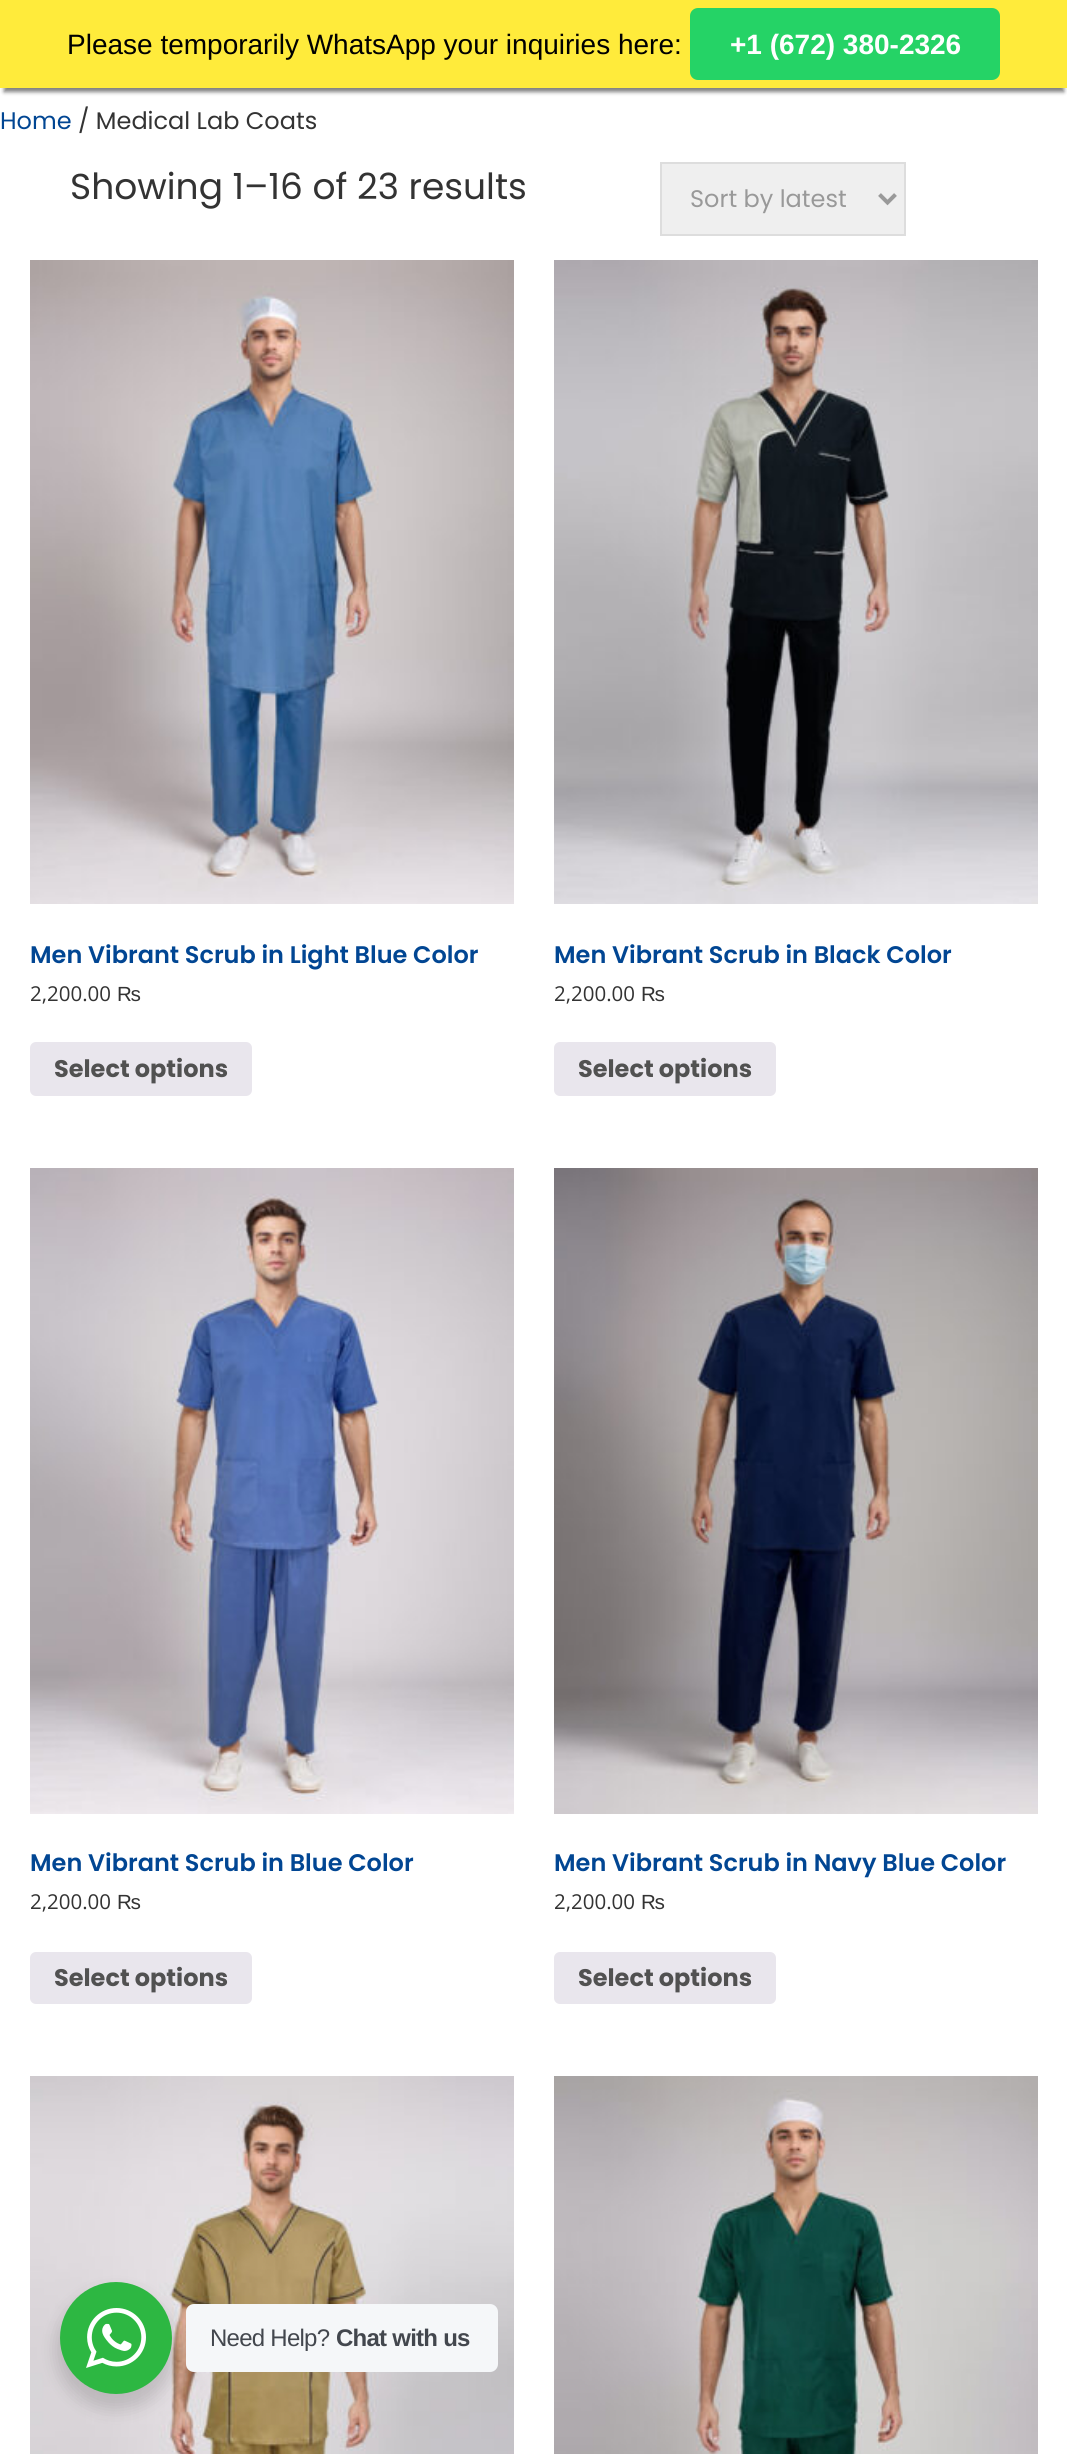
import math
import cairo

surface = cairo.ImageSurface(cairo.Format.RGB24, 1067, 2454)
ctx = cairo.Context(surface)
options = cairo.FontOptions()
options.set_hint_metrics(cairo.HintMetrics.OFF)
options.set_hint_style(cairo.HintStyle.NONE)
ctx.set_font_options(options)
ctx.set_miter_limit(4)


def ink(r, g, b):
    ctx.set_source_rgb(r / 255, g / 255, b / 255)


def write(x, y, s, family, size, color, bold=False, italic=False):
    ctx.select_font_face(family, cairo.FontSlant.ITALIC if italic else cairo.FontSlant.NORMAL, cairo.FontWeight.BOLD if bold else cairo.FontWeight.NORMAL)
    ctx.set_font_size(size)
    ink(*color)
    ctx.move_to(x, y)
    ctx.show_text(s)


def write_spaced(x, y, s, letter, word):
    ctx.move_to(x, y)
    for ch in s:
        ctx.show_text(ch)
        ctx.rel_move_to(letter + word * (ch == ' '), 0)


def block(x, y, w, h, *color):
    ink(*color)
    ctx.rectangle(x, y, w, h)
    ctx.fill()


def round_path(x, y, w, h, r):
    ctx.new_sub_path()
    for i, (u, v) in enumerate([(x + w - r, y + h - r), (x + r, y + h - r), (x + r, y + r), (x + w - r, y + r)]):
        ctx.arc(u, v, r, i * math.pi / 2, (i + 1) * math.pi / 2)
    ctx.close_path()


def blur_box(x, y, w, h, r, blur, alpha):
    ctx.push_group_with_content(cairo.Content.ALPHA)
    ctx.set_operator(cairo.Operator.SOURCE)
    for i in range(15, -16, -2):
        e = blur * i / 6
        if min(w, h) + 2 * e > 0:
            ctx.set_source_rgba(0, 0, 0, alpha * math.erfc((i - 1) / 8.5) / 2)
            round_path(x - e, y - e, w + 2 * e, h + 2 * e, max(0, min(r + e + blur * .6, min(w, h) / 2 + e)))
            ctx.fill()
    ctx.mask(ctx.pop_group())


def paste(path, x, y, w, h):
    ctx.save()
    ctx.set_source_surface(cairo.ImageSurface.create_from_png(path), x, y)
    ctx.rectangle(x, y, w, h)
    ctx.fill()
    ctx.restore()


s1 = dict(family="Liberation Sans", size=28, color=(0, 0, 0))
s2 = dict(family="Liberation Sans", size=28, color=(255, 255, 255), bold=True)
s3 = dict(family="Poppins", size=24, color=(1, 70, 147))
s4 = dict(family="Poppins", size=24, color=(51, 51, 51))
s5 = dict(family="Poppins", size=36, color=(51, 51, 51))
s6 = dict(family="Poppins", size=24, color=(153, 153, 153))
s7 = dict(family="Poppins SemiBold", size=24, color=(1, 70, 147))
s8 = dict(family="Open Sans", size=20.5, color=(51, 51, 51))
s9 = dict(family="Liberation Sans", size=20.5, color=(51, 51, 51))
s10 = dict(family="Poppins", size=24, color=(81, 81, 81), bold=True)

ink(255, 255, 255)
ctx.paint()
ink(128, 128, 128)
blur_box(4, 12, 1060, 80, 0, 2, 1)
block(0, 0, 1067, 88, 255, 235, 59)
write(67, 54, "Please temporarily WhatsApp your inquiries here:", **s1)
ink(37, 211, 102)
round_path(690, 8, 310, 72, 8)
ctx.fill()
write(730, 54, "+1 (672) 380-2326", **s2)
write(0, 129, "Home", **s3)
write(78, 129, "/ Medical Lab Coats", **s4)
write(70, 199, "Showing 1–16 of 23 results", **s5)
ink(239, 239, 239)
ctx.rectangle(661, 163, 244, 72)
ctx.fill_preserve()
ink(221, 221, 221)
ctx.stroke()
ctx.new_path()
ctx.move_to(879.5, 194.5)
ctx.line_to(887.5, 202.5)
ctx.line_to(895.5, 194.5)
ink(153, 153, 153)
ctx.set_line_width(4)
ctx.stroke()
write(690, 207, "Sort by latest", **s6)
paste("pic1.png", 30, 260, 484, 644)
write(30, 963, "Men Vibrant Scrub in Light Blue Color", **s7)
write(30, 1001, "2,200.00", **s8)
write(117, 1001, "₨", **s9)
ink(233, 230, 237)
round_path(30, 1042, 222, 54, 6)
ctx.fill()
write(54, 1077, "Select options", **s10)
paste("pic2.png", 554, 260, 484, 644)
write(554, 963, "Men Vibrant Scrub in Black Color", **s7)
write(554, 1001, "2,200.00", **s8)
write(641, 1001, "₨", **s9)
ink(233, 230, 237)
round_path(554, 1042, 222, 54, 6)
ctx.fill()
write(578, 1077, "Select options", **s10)
paste("pic3.png", 30, 1168, 484, 646)
write(30, 1871, "Men Vibrant Scrub in Blue Color", **s7)
write(30, 1909, "2,200.00", **s8)
write(117, 1909, "₨", **s9)
ink(233, 230, 237)
round_path(30, 1952, 222, 52, 6)
ctx.fill()
write(54, 1986, "Select options", **s10)
paste("pic4.png", 554, 1168, 484, 646)
write(554, 1871, "Men Vibrant Scrub in Navy Blue Color", **s7)
write(554, 1909, "2,200.00", **s8)
write(641, 1909, "₨", **s9)
ink(233, 230, 237)
round_path(554, 1952, 222, 52, 6)
ctx.fill()
write(578, 1986, "Select options", **s10)
paste("pic5.png", 30, 2076, 484, 378)
paste("pic6.png", 554, 2076, 484, 378)
ink(0, 0, 0)
blur_box(56, 2290, 120, 120, 60, 8, 0.14)
ink(45, 183, 66)
ctx.arc(116, 2338, 56, 0, 2 * math.pi)
ctx.fill()
paste("pic7.png", 86, 2308, 60, 60)
ink(245, 247, 249)
round_path(186, 2304, 312, 68, 8)
ctx.fill()
ctx.select_font_face("Liberation Sans")
ink(67, 71, 78)
write_spaced(210, 2346, "Need Help?", -0.75, 0)
ctx.select_font_face("Liberation Sans", cairo.FontSlant.NORMAL, cairo.FontWeight.BOLD)
write_spaced(336, 2346, "Chat with us", -0.75, 0)
surface.write_to_png("screenshot.png")
